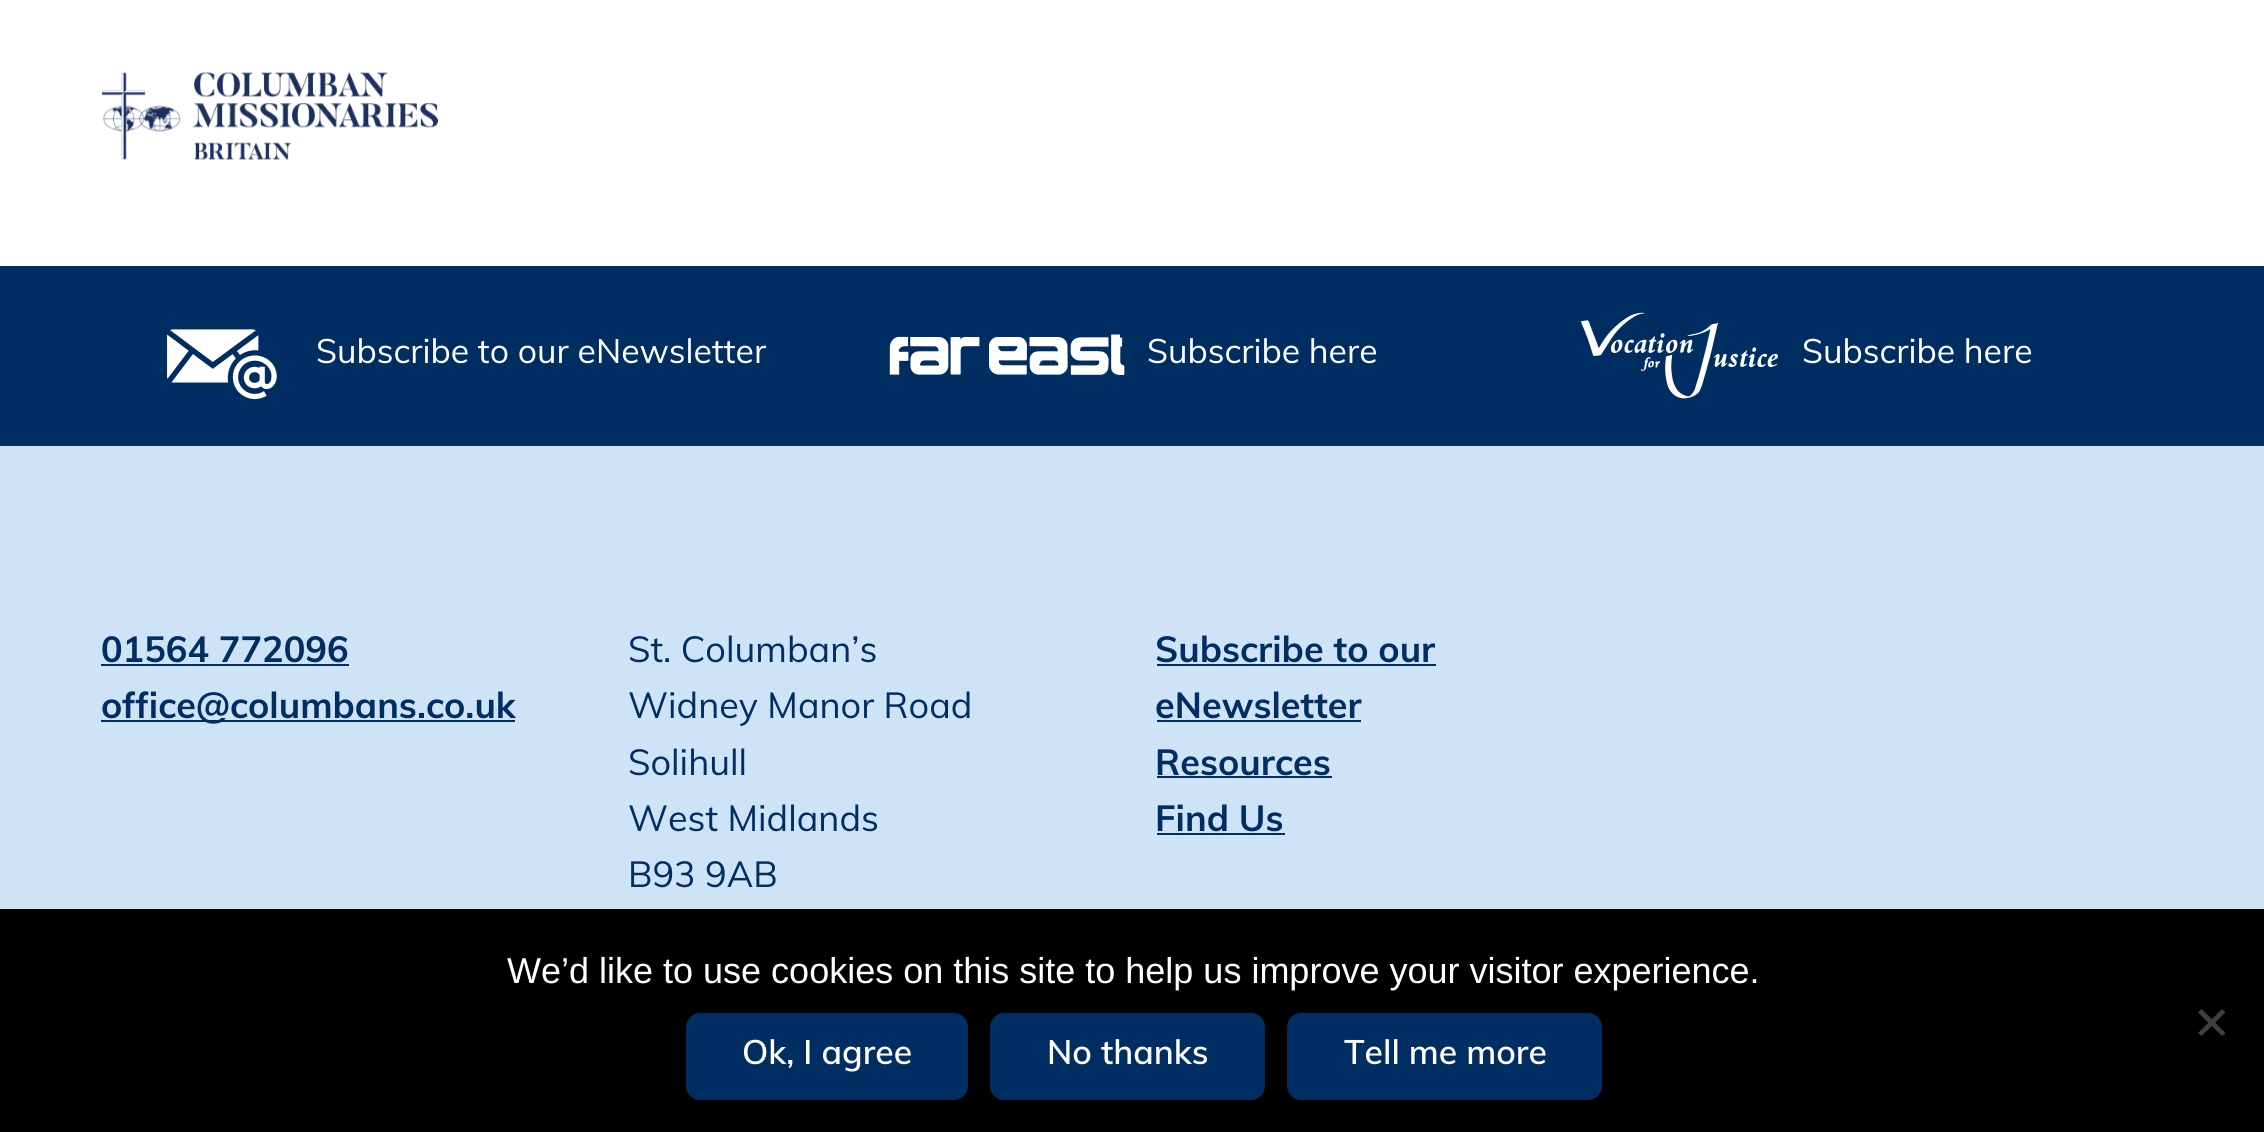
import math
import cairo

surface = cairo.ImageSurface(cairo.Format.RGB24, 2264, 1132)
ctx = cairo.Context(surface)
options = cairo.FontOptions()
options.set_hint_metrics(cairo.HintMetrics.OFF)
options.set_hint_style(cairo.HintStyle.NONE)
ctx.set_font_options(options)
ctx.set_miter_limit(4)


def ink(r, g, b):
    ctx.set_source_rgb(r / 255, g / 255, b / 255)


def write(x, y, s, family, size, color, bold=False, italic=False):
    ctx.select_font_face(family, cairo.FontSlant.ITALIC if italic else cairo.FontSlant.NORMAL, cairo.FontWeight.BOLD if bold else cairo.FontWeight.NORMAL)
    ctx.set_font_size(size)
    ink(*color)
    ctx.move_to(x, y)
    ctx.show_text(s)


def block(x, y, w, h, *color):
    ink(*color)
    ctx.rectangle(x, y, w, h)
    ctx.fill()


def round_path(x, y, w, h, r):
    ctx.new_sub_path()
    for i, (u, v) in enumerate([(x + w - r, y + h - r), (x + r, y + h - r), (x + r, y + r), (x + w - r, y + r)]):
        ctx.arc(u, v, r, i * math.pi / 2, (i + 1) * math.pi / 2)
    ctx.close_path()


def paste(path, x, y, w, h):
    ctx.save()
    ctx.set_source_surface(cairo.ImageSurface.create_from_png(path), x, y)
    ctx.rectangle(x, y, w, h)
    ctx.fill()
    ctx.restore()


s1 = dict(family="Muli", size=33.75, color=(255, 255, 255))
s2 = dict(family="Muli", size=36, color=(0, 46, 99), bold=True)
s3 = dict(family="Muli", size=36, color=(0, 46, 99))
s4 = dict(family="Liberation Sans", size=36, color=(255, 255, 255))
s5 = dict(family="Muli SemiBold", size=33.75, color=(255, 255, 255))

ink(255, 255, 255)
ctx.paint()
paste("pic1.png", 102, 72, 336, 88)
block(0, 266, 2264, 180, 0, 46, 99)
paste("pic2.png", 167, 329, 110, 71)
write(316, 363, "Subscribe to our eNewsletter", **s1)
paste("pic3.png", 889, 334, 236, 41)
write(1147, 363, "Subscribe here", **s1)
paste("pic4.png", 1580, 312, 198, 87)
write(1802, 363, "Subscribe here", **s1)
block(0, 446, 2264, 463, 207, 227, 246)
write(101, 662, "01564 772096", **s2)
block(101, 664, 248, 2, 0, 46, 99)
block(101, 720, 414, 2, 0, 46, 99)
write(101, 718, "office@columbans.co.uk", **s2)
write(628, 662, "St. Columban’s", **s3)
write(628, 718, "Widney Manor Road", **s3)
write(628, 775, "Solihull", **s3)
write(628, 831, "West Midlands", **s3)
write(628, 887, "B93 9AB", **s3)
write(1155, 662, "Subscribe to our", **s2)
block(1157, 664, 279, 2, 0, 46, 99)
write(1155, 718, "eNewsletter", **s2)
block(1157, 720, 204, 2, 0, 46, 99)
write(1155, 775, "Resources", **s2)
block(1157, 776, 175, 2, 0, 46, 99)
write(1155, 831, "Find Us", **s2)
block(1157, 833, 128, 2, 0, 46, 99)
block(0, 909, 2264, 223, 0, 0, 0)
write(507, 983, "We’d like to use cookies on this site to help us improve your visitor experience.", **s4)
ink(64, 64, 64)
ctx.new_path()
ctx.move_to(2222, 1009)
ctx.line_to(2225.5, 1012.5)
ctx.line_to(2201.5, 1036)
ctx.line_to(2198, 1033)
ctx.close_path()
ctx.fill()
ctx.new_path()
ctx.move_to(2198, 1012.5)
ctx.line_to(2201.5, 1009)
ctx.line_to(2225.5, 1033)
ctx.line_to(2222, 1036)
ctx.close_path()
ctx.fill()
ink(0, 46, 99)
round_path(686, 1013, 282, 87, 14)
ctx.fill()
write(742, 1064, "Ok, I agree", **s5)
ink(0, 46, 99)
round_path(990, 1013, 275, 87, 14)
ctx.fill()
write(1047, 1064, "No thanks", **s5)
ink(0, 46, 99)
round_path(1287, 1013, 315, 87, 14)
ctx.fill()
write(1344, 1064, "Tell me more", **s5)
surface.write_to_png("screenshot.png")
